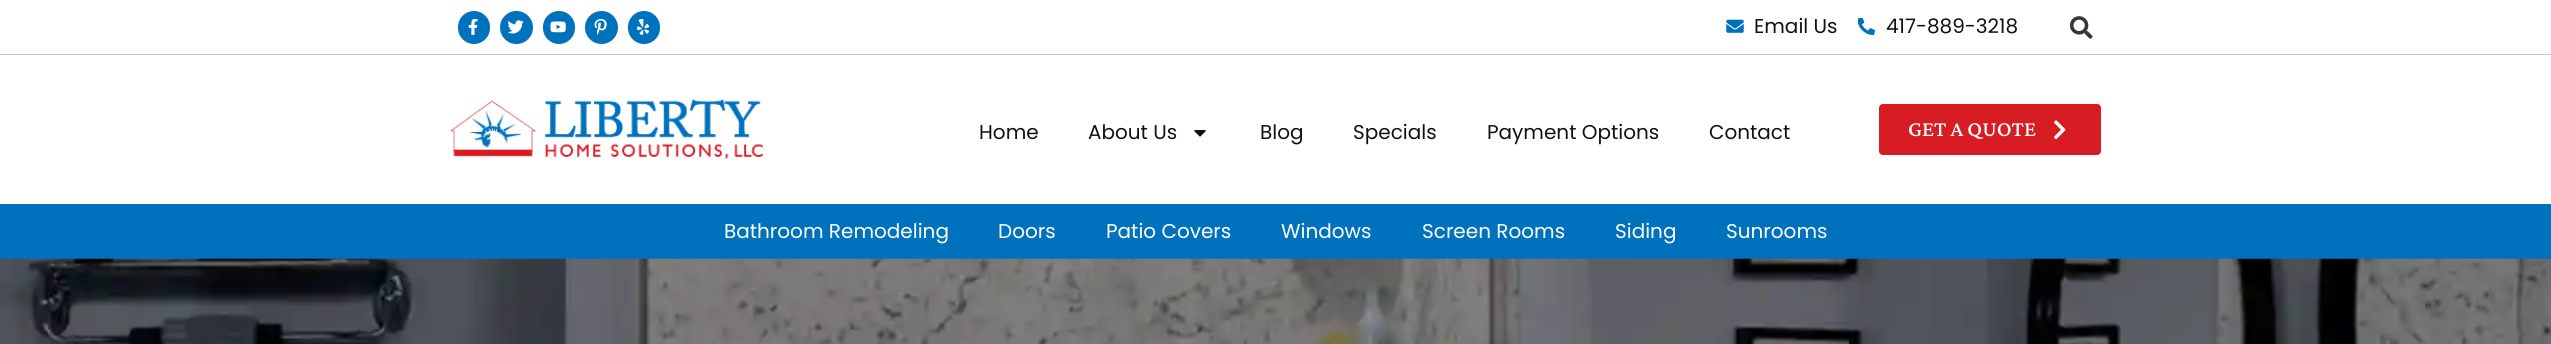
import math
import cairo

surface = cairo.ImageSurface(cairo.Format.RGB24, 2551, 344)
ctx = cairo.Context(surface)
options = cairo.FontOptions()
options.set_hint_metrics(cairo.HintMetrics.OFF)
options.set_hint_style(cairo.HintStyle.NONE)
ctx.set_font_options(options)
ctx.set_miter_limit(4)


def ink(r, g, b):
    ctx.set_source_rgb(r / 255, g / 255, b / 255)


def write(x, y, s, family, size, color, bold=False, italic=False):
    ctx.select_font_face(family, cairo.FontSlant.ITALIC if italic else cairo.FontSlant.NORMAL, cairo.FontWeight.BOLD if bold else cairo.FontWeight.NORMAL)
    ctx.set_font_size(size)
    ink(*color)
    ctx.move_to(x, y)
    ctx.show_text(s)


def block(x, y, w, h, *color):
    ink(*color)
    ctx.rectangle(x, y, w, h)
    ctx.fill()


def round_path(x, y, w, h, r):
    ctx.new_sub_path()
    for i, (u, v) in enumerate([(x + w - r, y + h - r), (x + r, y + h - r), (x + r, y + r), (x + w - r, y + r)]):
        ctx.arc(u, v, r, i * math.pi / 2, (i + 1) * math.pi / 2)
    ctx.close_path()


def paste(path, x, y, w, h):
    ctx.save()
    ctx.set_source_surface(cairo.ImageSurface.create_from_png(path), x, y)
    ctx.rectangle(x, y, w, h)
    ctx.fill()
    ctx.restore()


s1 = dict(family="Poppins", size=20, color=(18, 18, 18))
s2 = dict(family="Crimson Pro Medium", size=22, color=(255, 255, 255))
s3 = dict(family="Poppins", size=20, color=(255, 255, 255))

ink(255, 255, 255)
ctx.paint()
block(0, 54, 2551, 1, 201, 201, 201)
ink(0, 114, 189)
round_path(458, 11, 32, 33, 16)
ctx.fill()
paste("pic1.png", 468, 19, 10, 16)
ctx.arc(516.5, 27.5, 16.5, 0, 2 * math.pi)
ctx.fill()
paste("pic2.png", 508, 20, 16, 14)
round_path(543, 11, 32, 33, 16)
ctx.fill()
paste("pic3.png", 550, 21, 16, 12)
ctx.arc(601.5, 27.5, 16.5, 0, 2 * math.pi)
ctx.fill()
paste("pic4.png", 594, 19, 13, 16)
round_path(628, 11, 32, 33, 16)
ctx.fill()
paste("pic5.png", 637, 19, 13, 16)
paste("pic6.png", 1726, 19, 18, 14)
write(1754, 33, "Email Us", **s1)
paste("pic7.png", 1858, 18, 17, 17)
write(1886, 33, "417-889-3218", **s1)
paste("pic8.png", 2070, 16, 23, 23)
paste("pic9.png", 451, 99, 312, 60)
write(979, 139, "Home", **s1)
write(1088, 139, "About Us", **s1)
paste("pic10.png", 1194, 130, 12, 7)
write(1260, 139, "Blog", **s1)
write(1353, 139, "Specials", **s1)
write(1487, 139, "Payment Options", **s1)
write(1709, 139, "Contact", **s1)
ink(215, 28, 36)
round_path(1879, 104, 222, 51, 4)
ctx.fill()
write(1908, 136, "GET A QUOTE", **s2)
paste("pic11.png", 2054, 120, 12, 20)
block(0, 204, 2551, 55, 0, 114, 189)
write(724, 238, "Bathroom Remodeling", **s3)
write(998, 238, "Doors", **s3)
write(1106, 238, "Patio Covers", **s3)
write(1281, 238, "Windows", **s3)
write(1422, 238, "Screen Rooms", **s3)
write(1615, 238, "Siding", **s3)
write(1726, 238, "Sunrooms", **s3)
paste("pic12.png", 0, 258, 2551, 86)
surface.write_to_png("screenshot.png")
